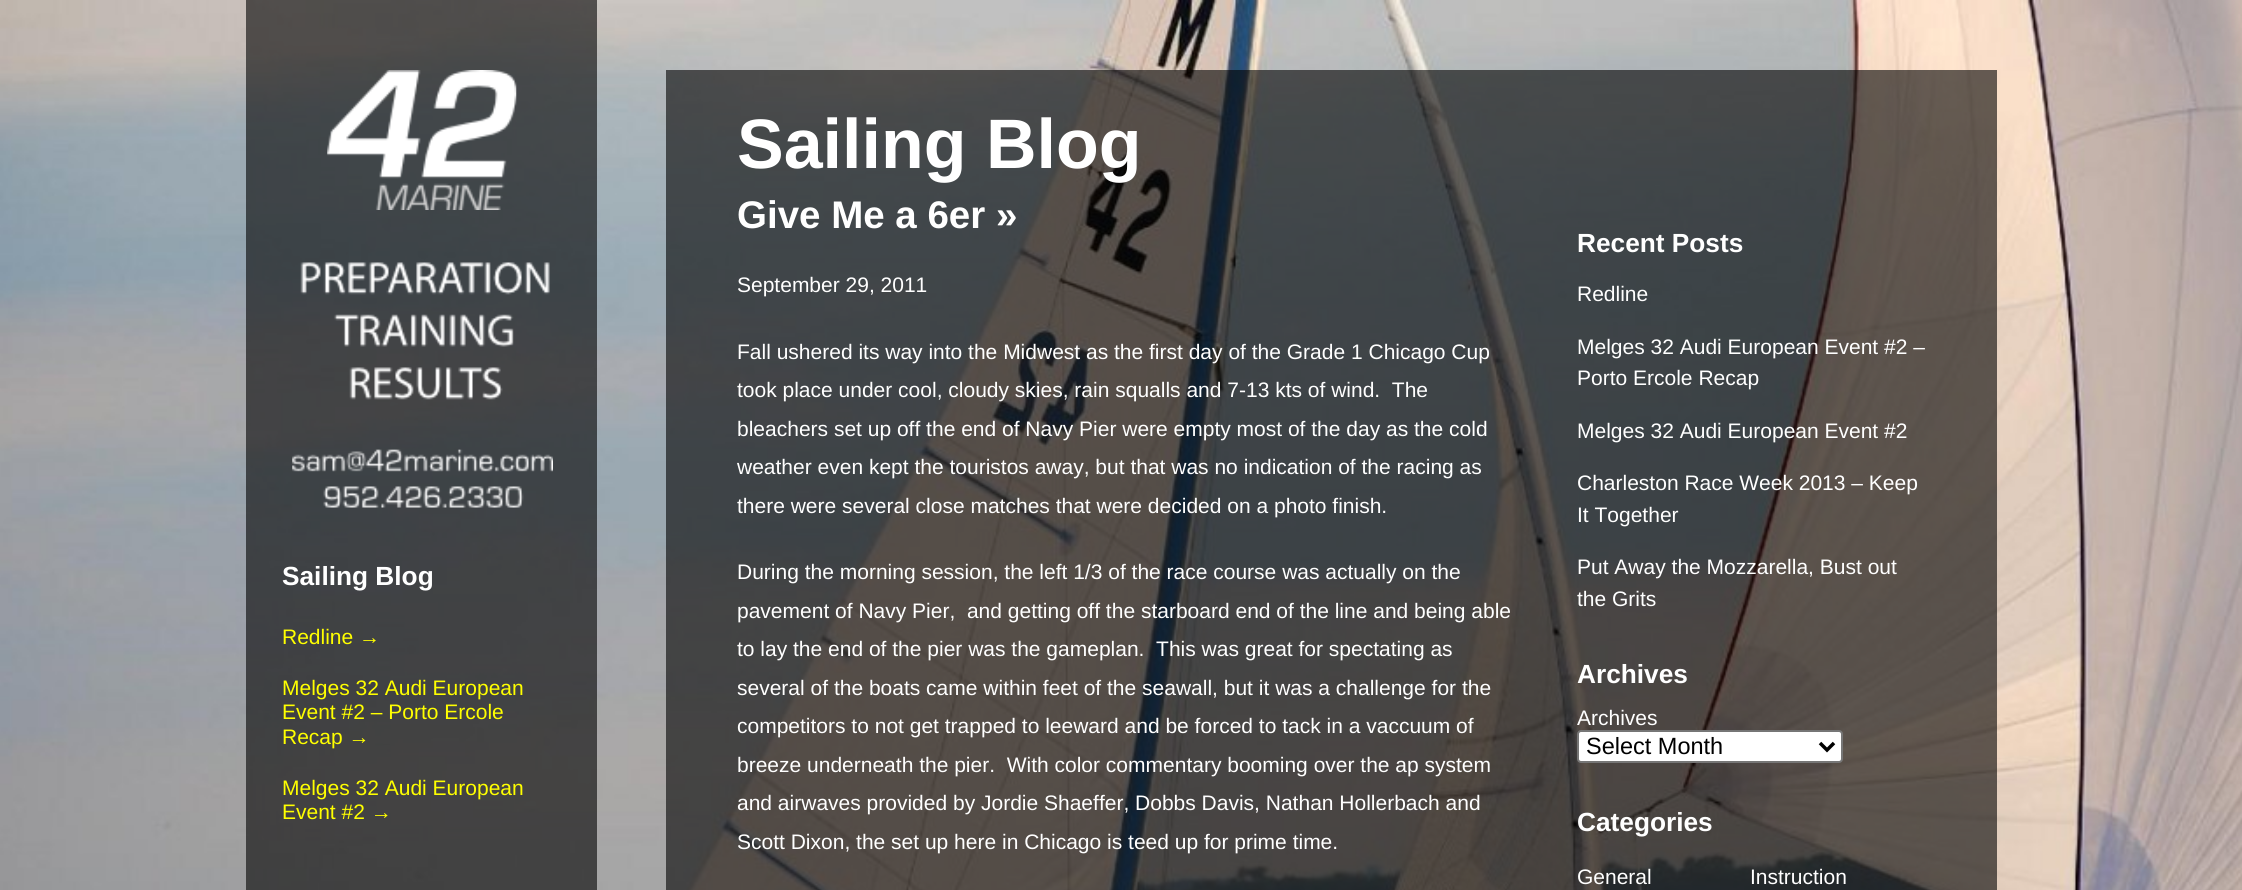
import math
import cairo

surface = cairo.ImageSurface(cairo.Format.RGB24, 2242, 890)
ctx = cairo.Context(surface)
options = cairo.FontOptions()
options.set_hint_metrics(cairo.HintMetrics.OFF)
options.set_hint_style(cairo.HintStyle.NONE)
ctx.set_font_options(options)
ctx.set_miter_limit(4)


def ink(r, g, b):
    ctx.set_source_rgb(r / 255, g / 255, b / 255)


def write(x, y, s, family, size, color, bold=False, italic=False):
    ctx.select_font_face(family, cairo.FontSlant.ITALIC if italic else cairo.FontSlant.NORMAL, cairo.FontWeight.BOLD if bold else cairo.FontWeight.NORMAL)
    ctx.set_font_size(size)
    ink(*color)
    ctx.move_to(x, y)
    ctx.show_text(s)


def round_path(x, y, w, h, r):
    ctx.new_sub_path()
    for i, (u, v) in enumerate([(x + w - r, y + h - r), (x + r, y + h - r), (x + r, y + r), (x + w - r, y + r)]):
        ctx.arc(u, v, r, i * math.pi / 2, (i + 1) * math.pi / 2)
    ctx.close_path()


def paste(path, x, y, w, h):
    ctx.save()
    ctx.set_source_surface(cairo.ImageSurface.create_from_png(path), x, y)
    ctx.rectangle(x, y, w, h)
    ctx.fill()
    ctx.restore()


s1 = dict(family="Liberation Sans", size=26.25, color=(255, 255, 255), bold=True)
s2 = dict(family="Liberation Sans", size=21, color=(255, 255, 0))
s3 = dict(family="Liberation Sans", size=70, color=(255, 255, 255), bold=True)
s4 = dict(family="Liberation Sans", size=38.5, color=(255, 255, 255), bold=True)
s5 = dict(family="Liberation Sans", size=21, color=(255, 255, 255))
s6 = dict(family="Liberation Sans", size=23.5, color=(0, 0, 0))

ink(255, 255, 255)
ctx.paint()
paste("pic1.png", 0, 0, 2242, 890)
ctx.set_source_rgba(0, 0, 0, 0.6)
ctx.rectangle(246, 0, 351, 890)
ctx.fill()
paste("pic2.png", 327, 70, 190, 140)
paste("pic3.png", 292, 262, 261, 246)
write(282, 585, "Sailing Blog", **s1)
write(282, 644, "Redline →", **s2)
write(282, 695, "Melges 32 Audi European", **s2)
write(282, 719, "Event #2 – Porto Ercole", **s2)
write(282, 744, "Recap →", **s2)
write(282, 795, "Melges 32 Audi European", **s2)
write(282, 819, "Event #2 →", **s2)
ctx.set_source_rgba(0, 0, 0, 0.6)
ctx.rectangle(666, 70, 1331, 820)
ctx.fill()
write(737, 168, "Sailing Blog", **s3)
write(737, 228, "Give Me a 6er »", **s4)
write(737, 292, "September 29, 2011", **s5)
write(737, 359, "Fall ushered its way into the Midwest as the first day of the Grade 1 Chicago Cup", **s5)
write(737, 397, "took place under cool, cloudy skies, rain squalls and 7-13 kts of wind.  The", **s5)
write(737, 436, "bleachers set up off the end of Navy Pier were empty most of the day as the cold", **s5)
write(737, 474, "weather even kept the touristos away, but that was no indication of the racing as", **s5)
write(737, 513, "there were several close matches that were decided on a photo finish.", **s5)
write(737, 579, "During the morning session, the left 1/3 of the race course was actually on the", **s5)
write(737, 618, "pavement of Navy Pier,  and getting off the starboard end of the line and being able", **s5)
write(737, 656, "to lay the end of the pier was the gameplan.  This was great for spectating as", **s5)
write(737, 695, "several of the boats came within feet of the seawall, but it was a challenge for the", **s5)
write(737, 733, "competitors to not get trapped to leeward and be forced to tack in a vaccuum of", **s5)
write(737, 772, "breeze underneath the pier.  With color commentary booming over the ap system", **s5)
write(737, 810, "and airwaves provided by Jordie Shaeffer, Dobbs Davis, Nathan Hollerbach and", **s5)
write(737, 849, "Scott Dixon, the set up here in Chicago is teed up for prime time.", **s5)
write(1577, 252, "Recent Posts", **s1)
write(1577, 301, "Redline", **s5)
write(1577, 354, "Melges 32 Audi European Event #2 –", **s5)
write(1577, 385, "Porto Ercole Recap", **s5)
write(1577, 438, "Melges 32 Audi European Event #2", **s5)
write(1577, 490, "Charleston Race Week 2013 – Keep", **s5)
write(1577, 522, "It Together", **s5)
write(1577, 574, "Put Away the Mozzarella, Bust out", **s5)
write(1577, 606, "the Grits", **s5)
write(1577, 683, "Archives", **s1)
write(1577, 725, "Archives", **s5)
round_path(1578, 731, 264, 31, 3)
ctx.fill_preserve()
ink(118, 118, 118)
ctx.stroke()
ctx.new_path()
ctx.move_to(1820, 743)
ctx.line_to(1827, 750)
ctx.line_to(1834, 743)
ink(0, 0, 0)
ctx.set_line_width(3.5)
ctx.stroke()
write(1586, 754, "Select Month", **s6)
write(1577, 831, "Categories", **s1)
write(1577, 884, "General", **s5)
write(1750, 884, "Instruction", **s5)
surface.write_to_png("screenshot.png")
